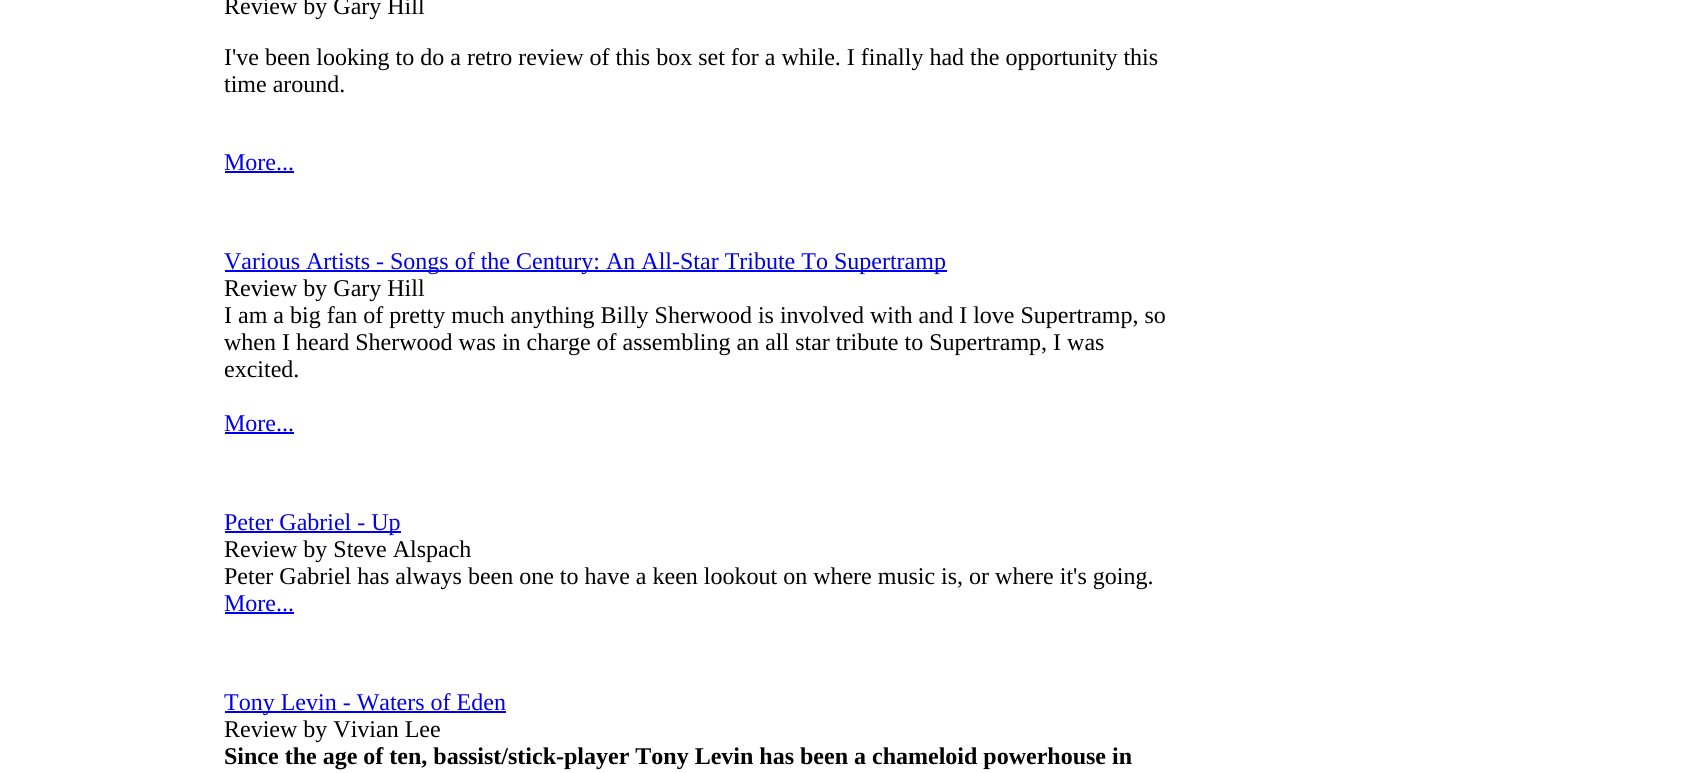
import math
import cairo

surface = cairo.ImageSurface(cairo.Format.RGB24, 1693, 773)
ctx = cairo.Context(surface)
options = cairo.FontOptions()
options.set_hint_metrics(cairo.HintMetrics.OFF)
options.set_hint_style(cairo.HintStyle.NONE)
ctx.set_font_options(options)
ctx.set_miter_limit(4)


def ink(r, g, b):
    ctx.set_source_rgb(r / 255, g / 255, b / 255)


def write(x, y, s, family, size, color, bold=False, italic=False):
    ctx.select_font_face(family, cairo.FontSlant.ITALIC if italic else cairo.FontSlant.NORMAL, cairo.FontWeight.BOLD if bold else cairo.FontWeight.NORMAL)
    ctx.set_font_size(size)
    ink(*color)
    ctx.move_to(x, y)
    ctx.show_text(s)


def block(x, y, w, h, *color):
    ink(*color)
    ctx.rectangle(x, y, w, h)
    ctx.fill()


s1 = dict(family="Liberation Serif", size=24, color=(0, 0, 0))
s2 = dict(family="Liberation Serif", size=24, color=(0, 0, 238))
s3 = dict(family="Liberation Serif", size=24, color=(0, 0, 0), bold=True)

ink(255, 255, 255)
ctx.paint()
write(224, 14, "Review by Gary Hill", **s1)
write(224, 65, "I've been looking to do a retro review of this box set for a while. I finally had the opportunity this", **s1)
write(224, 92, "time around.", **s1)
write(224, 170, "More...", **s2)
block(225, 171, 69, 2, 0, 0, 238)
block(225, 270, 722, 2, 0, 0, 238)
write(224, 269, "Various Artists - Songs of the Century: An All-Star Tribute To Supertramp", **s2)
write(224, 296, "Review by Gary Hill", **s1)
write(224, 323, "I am a big fan of pretty much anything Billy Sherwood is involved with and I love Supertramp, so", **s1)
write(224, 350, "when I heard Sherwood was in charge of assembling an all star tribute to Supertramp, I was", **s1)
write(224, 377, "excited.", **s1)
write(224, 431, "More...", **s2)
block(225, 432, 69, 2, 0, 0, 238)
block(225, 531, 176, 2, 0, 0, 238)
write(224, 530, "Peter Gabriel - Up", **s2)
write(224, 557, "Review by Steve Alspach", **s1)
write(224, 584, "Peter Gabriel has always been one to have a keen lookout on where music is, or where it's going.", **s1)
write(224, 611, "More...", **s2)
block(225, 612, 69, 2, 0, 0, 238)
block(225, 711, 281, 2, 0, 0, 238)
write(224, 710, "Tony Levin - Waters of Eden", **s2)
write(224, 737, "Review by Vivian Lee", **s1)
write(224, 764, "Since the age of ten, bassist/stick-player Tony Levin has been a chameloid powerhouse in", **s3)
surface.write_to_png("screenshot.png")
